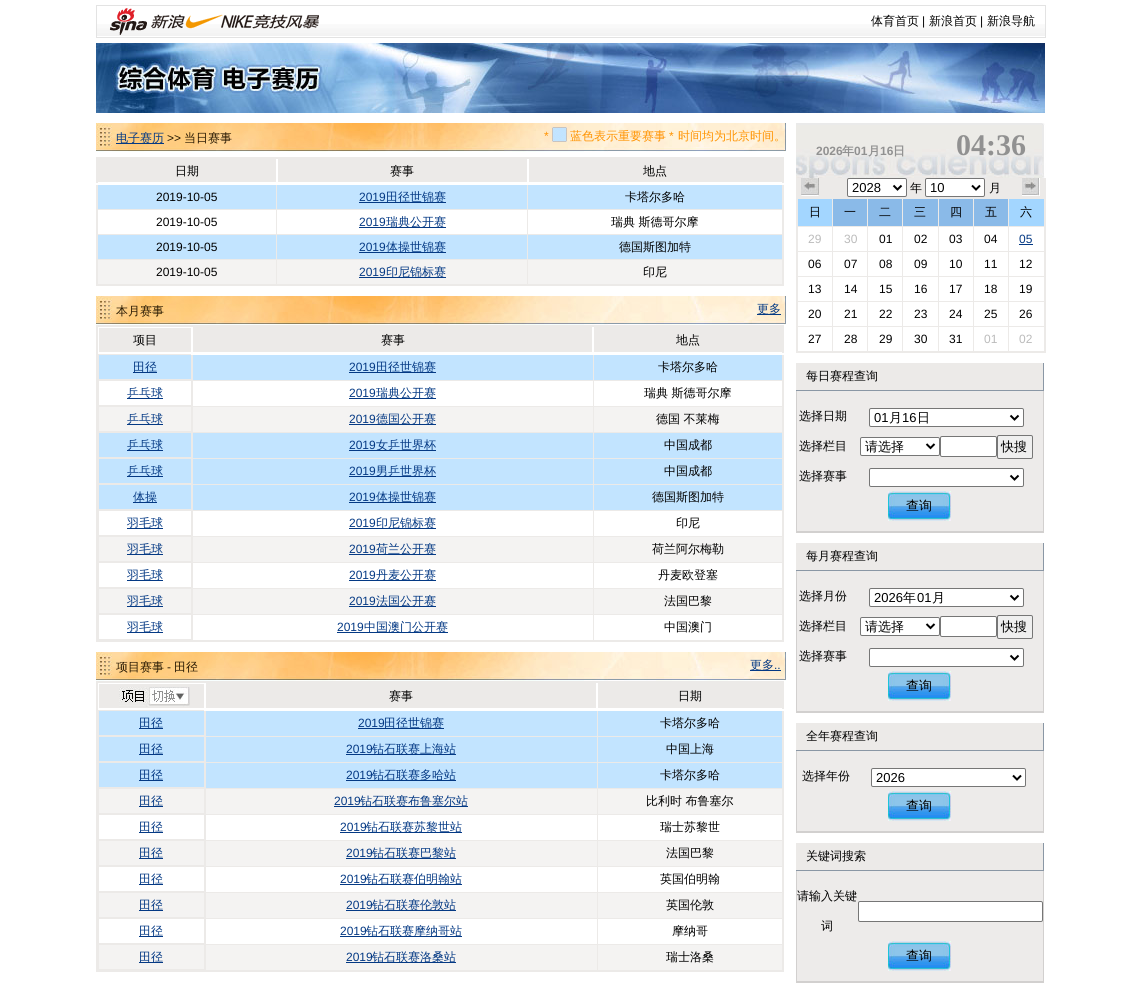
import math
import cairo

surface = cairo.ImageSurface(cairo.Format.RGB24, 1141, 984)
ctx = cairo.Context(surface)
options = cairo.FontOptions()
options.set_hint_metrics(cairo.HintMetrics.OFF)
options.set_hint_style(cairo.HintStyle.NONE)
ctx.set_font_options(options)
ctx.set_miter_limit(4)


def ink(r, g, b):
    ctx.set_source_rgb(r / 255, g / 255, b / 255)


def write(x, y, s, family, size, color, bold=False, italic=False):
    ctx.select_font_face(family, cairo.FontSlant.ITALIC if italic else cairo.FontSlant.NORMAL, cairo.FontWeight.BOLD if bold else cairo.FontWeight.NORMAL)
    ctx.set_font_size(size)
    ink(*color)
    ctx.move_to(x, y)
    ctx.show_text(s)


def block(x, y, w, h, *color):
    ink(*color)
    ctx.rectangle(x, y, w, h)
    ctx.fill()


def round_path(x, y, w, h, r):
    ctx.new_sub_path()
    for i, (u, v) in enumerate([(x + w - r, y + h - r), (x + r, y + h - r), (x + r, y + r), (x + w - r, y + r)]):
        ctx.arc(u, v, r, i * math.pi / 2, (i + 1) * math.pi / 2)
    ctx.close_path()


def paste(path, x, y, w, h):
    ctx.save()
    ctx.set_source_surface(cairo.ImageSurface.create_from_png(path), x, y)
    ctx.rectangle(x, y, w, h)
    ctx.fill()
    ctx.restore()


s1 = dict(family="WenQuanYi Zen Hei Medium", size=12, color=(0, 0, 0))
s2 = dict(family="Liberation Sans", size=12, color=(0, 0, 0))
s3 = dict(family="WenQuanYi Zen Hei Medium", size=12, color=(4, 57, 132))
s4 = dict(family="Liberation Sans", size=12, color=(40, 25, 2))
s5 = dict(family="WenQuanYi Zen Hei Medium", size=12, color=(40, 25, 2))
s6 = dict(family="Liberation Sans", size=12, color=(255, 147, 0))
s7 = dict(family="WenQuanYi Zen Hei Medium", size=12, color=(255, 147, 0))
s8 = dict(family="Liberation Sans", size=12, color=(4, 57, 132))
s9 = dict(family="Liberation Sans", size=12, color=(145, 145, 145), bold=True)
s10 = dict(family="WenQuanYi Zen Hei", size=12, color=(145, 145, 145), bold=True)
s11 = dict(family="Liberation Serif", size=30, color=(145, 145, 145), bold=True)
s12 = dict(family="Liberation Sans", size=13, color=(0, 0, 0))
s13 = dict(family="Liberation Sans", size=12, color=(187, 187, 187))
s14 = dict(family="WenQuanYi Zen Hei Medium", size=13, color=(0, 0, 0))

ink(255, 255, 255)
ctx.paint()
paste("pic1.png", 97, 24, 948, 12)
ctx.rectangle(96.5, 5.5, 949, 32)
ink(227, 227, 227)
ctx.set_line_width(1)
ctx.stroke()
paste("pic2.png", 109, 8, 38, 27)
paste("pic3.png", 151, 14, 168, 15)
write(871, 25, "体育首页", **s1)
write(922, 25, "|", **s2)
write(929, 25, "新浪首页", **s1)
write(980, 25, "|", **s2)
write(987, 25, "新浪导航", **s1)
paste("pic4.png", 96, 43, 949, 70)
paste("pic5.png", 96, 123, 690, 29)
block(116, 143, 48, 1, 4, 57, 132)
write(116, 142, "电子赛历", **s3)
write(167, 142, ">>", **s4)
write(184, 142, "当日赛事", **s5)
write(544, 140, "*", **s6)
paste("pic6.png", 552, 127, 15, 15)
write(570, 140, "蓝色表示重要赛事", **s7)
write(669, 140, "*", **s6)
write(678, 140, "时间均为北京时间。", **s7)
block(96, 157, 688, 2, 236, 234, 232)
block(527, 209, 256, 1, 236, 234, 232)
block(527, 234, 256, 1, 236, 234, 232)
block(527, 259, 256, 1, 236, 234, 232)
block(782, 157, 2, 129, 236, 234, 232)
block(527, 259, 1, 27, 236, 234, 232)
block(276, 259, 252, 1, 236, 234, 232)
block(276, 259, 1, 27, 236, 234, 232)
block(96, 284, 688, 2, 236, 234, 232)
block(527, 234, 1, 26, 236, 234, 232)
block(276, 234, 252, 1, 236, 234, 232)
block(527, 209, 1, 26, 236, 234, 232)
block(276, 209, 252, 1, 236, 234, 232)
block(96, 259, 181, 1, 236, 234, 232)
block(276, 234, 1, 26, 236, 234, 232)
block(96, 234, 181, 1, 236, 234, 232)
block(276, 209, 1, 26, 236, 234, 232)
block(96, 209, 181, 1, 236, 234, 232)
block(96, 157, 2, 129, 236, 234, 232)
block(98, 159, 178, 23, 236, 234, 232)
block(96, 183, 2, 2, 255, 255, 255)
write(175, 175, "日期", **s1)
block(278, 159, 249, 23, 236, 234, 232)
block(276, 184, 1, 26, 236, 234, 232)
block(276, 184, 1, 1, 255, 255, 255)
write(390, 175, "赛事", **s1)
block(529, 159, 253, 23, 236, 234, 232)
block(527, 184, 1, 26, 236, 234, 232)
block(527, 184, 1, 1, 255, 255, 255)
block(782, 183, 2, 2, 255, 255, 255)
write(643, 175, "地点", **s1)
block(98, 185, 178, 24, 194, 228, 255)
write(156, 201, "2019-10-05", **s2)
block(277, 185, 250, 24, 194, 228, 255)
write(359, 201, "2019", **s8)
block(359, 202, 87, 1, 4, 57, 132)
write(386, 201, "田径世锦赛", **s3)
block(528, 185, 254, 24, 194, 228, 255)
write(625, 201, "卡塔尔多哈", **s1)
write(156, 226, "2019-10-05", **s2)
write(359, 226, "2019", **s8)
block(359, 227, 87, 1, 4, 57, 132)
write(386, 226, "瑞典公开赛", **s3)
write(611, 226, "瑞典 斯德哥尔摩", **s1)
block(98, 235, 178, 24, 194, 228, 255)
write(156, 251, "2019-10-05", **s2)
block(277, 235, 250, 24, 194, 228, 255)
write(359, 251, "2019", **s8)
block(359, 252, 87, 1, 4, 57, 132)
write(386, 251, "体操世锦赛", **s3)
block(528, 235, 254, 24, 194, 228, 255)
write(619, 251, "德国斯图加特", **s1)
block(98, 260, 178, 24, 244, 243, 242)
write(156, 276, "2019-10-05", **s2)
block(277, 260, 250, 24, 244, 243, 242)
write(359, 276, "2019", **s8)
block(359, 277, 87, 1, 4, 57, 132)
write(386, 276, "印尼锦标赛", **s3)
block(528, 260, 254, 24, 244, 243, 242)
write(643, 276, "印尼", **s1)
paste("pic5.png", 96, 296, 690, 29)
write(116, 315, "本月赛事", **s5)
block(757, 314, 24, 1, 4, 57, 132)
write(757, 313, "更多", **s3)
block(96, 325, 688, 2, 236, 234, 232)
block(593, 380, 190, 1, 236, 234, 232)
block(593, 406, 190, 1, 236, 234, 232)
block(593, 432, 190, 1, 236, 234, 232)
block(593, 458, 190, 1, 236, 234, 232)
block(593, 484, 190, 1, 236, 234, 232)
block(593, 510, 190, 1, 236, 234, 232)
block(593, 536, 190, 1, 236, 234, 232)
block(593, 562, 190, 1, 236, 234, 232)
block(593, 588, 190, 1, 236, 234, 232)
block(593, 614, 190, 1, 236, 234, 232)
block(782, 325, 2, 317, 236, 234, 232)
block(593, 614, 1, 28, 236, 234, 232)
block(192, 614, 402, 1, 236, 234, 232)
block(192, 614, 1, 28, 236, 234, 232)
block(96, 640, 688, 2, 236, 234, 232)
block(96, 325, 2, 317, 236, 234, 232)
block(99, 328, 92, 24, 236, 234, 232)
write(133, 344, "项目", **s1)
block(193, 327, 399, 25, 236, 234, 232)
ink(194, 228, 255)
ctx.rectangle(98.5, 354.5, 93, 25)
ctx.fill_preserve()
ink(236, 234, 232)
ctx.stroke()
block(593, 588, 1, 27, 236, 234, 232)
block(192, 588, 402, 1, 236, 234, 232)
block(593, 562, 1, 27, 236, 234, 232)
block(192, 562, 402, 1, 236, 234, 232)
block(593, 536, 1, 27, 236, 234, 232)
block(192, 536, 402, 1, 236, 234, 232)
block(593, 510, 1, 27, 236, 234, 232)
block(192, 510, 402, 1, 236, 234, 232)
block(593, 484, 1, 27, 236, 234, 232)
block(192, 484, 402, 1, 236, 234, 232)
block(593, 458, 1, 27, 236, 234, 232)
block(192, 458, 402, 1, 236, 234, 232)
block(593, 432, 1, 27, 236, 234, 232)
block(192, 432, 402, 1, 236, 234, 232)
block(593, 406, 1, 27, 236, 234, 232)
block(192, 406, 402, 1, 236, 234, 232)
block(593, 380, 1, 27, 236, 234, 232)
block(192, 380, 402, 1, 236, 234, 232)
block(192, 588, 1, 27, 236, 234, 232)
block(192, 562, 1, 27, 236, 234, 232)
block(192, 536, 1, 27, 236, 234, 232)
block(192, 510, 1, 27, 236, 234, 232)
block(192, 484, 1, 27, 236, 234, 232)
block(192, 458, 1, 27, 236, 234, 232)
block(192, 432, 1, 27, 236, 234, 232)
block(192, 406, 1, 27, 236, 234, 232)
block(192, 354, 1, 53, 236, 234, 232)
block(191, 354, 2, 1, 255, 255, 255)
write(381, 344, "赛事", **s1)
block(594, 327, 188, 25, 236, 234, 232)
block(593, 354, 1, 27, 236, 234, 232)
block(593, 354, 1, 1, 255, 255, 255)
block(782, 353, 2, 2, 255, 255, 255)
write(676, 344, "地点", **s1)
block(133, 372, 24, 1, 4, 57, 132)
write(133, 371, "田径", **s3)
block(193, 355, 400, 25, 194, 228, 255)
write(349, 371, "2019", **s8)
block(349, 372, 87, 1, 4, 57, 132)
write(376, 371, "田径世锦赛", **s3)
block(594, 355, 188, 25, 194, 228, 255)
write(658, 371, "卡塔尔多哈", **s1)
ctx.rectangle(98.5, 380.5, 93, 25)
ink(236, 234, 232)
ctx.stroke()
block(127, 398, 36, 1, 4, 57, 132)
write(127, 397, "乒乓球", **s3)
write(349, 397, "2019", **s8)
block(349, 398, 87, 1, 4, 57, 132)
write(376, 397, "瑞典公开赛", **s3)
write(644, 397, "瑞典 斯德哥尔摩", **s1)
ink(244, 243, 242)
ctx.rectangle(98.5, 406.5, 93, 25)
ctx.fill_preserve()
ink(236, 234, 232)
ctx.stroke()
block(127, 424, 36, 1, 4, 57, 132)
write(127, 423, "乒乓球", **s3)
block(193, 407, 400, 25, 244, 243, 242)
write(349, 423, "2019", **s8)
block(349, 424, 87, 1, 4, 57, 132)
write(376, 423, "德国公开赛", **s3)
block(594, 407, 188, 25, 244, 243, 242)
write(656, 423, "德国 不莱梅", **s1)
ink(194, 228, 255)
ctx.rectangle(98.5, 432.5, 93, 25)
ctx.fill_preserve()
ink(236, 234, 232)
ctx.stroke()
block(127, 450, 36, 1, 4, 57, 132)
write(127, 449, "乒乓球", **s3)
block(193, 433, 400, 25, 194, 228, 255)
write(349, 449, "2019", **s8)
block(349, 450, 87, 1, 4, 57, 132)
write(376, 449, "女乒世界杯", **s3)
block(594, 433, 188, 25, 194, 228, 255)
write(664, 449, "中国成都", **s1)
ink(194, 228, 255)
ctx.rectangle(98.5, 458.5, 93, 25)
ctx.fill_preserve()
ink(236, 234, 232)
ctx.stroke()
block(127, 476, 36, 1, 4, 57, 132)
write(127, 475, "乒乓球", **s3)
block(193, 459, 400, 25, 194, 228, 255)
write(349, 475, "2019", **s8)
block(349, 476, 87, 1, 4, 57, 132)
write(376, 475, "男乒世界杯", **s3)
block(594, 459, 188, 25, 194, 228, 255)
write(664, 475, "中国成都", **s1)
ink(194, 228, 255)
ctx.rectangle(98.5, 484.5, 93, 25)
ctx.fill_preserve()
ink(236, 234, 232)
ctx.stroke()
block(133, 502, 24, 1, 4, 57, 132)
write(133, 501, "体操", **s3)
block(193, 485, 400, 25, 194, 228, 255)
write(349, 501, "2019", **s8)
block(349, 502, 87, 1, 4, 57, 132)
write(376, 501, "体操世锦赛", **s3)
block(594, 485, 188, 25, 194, 228, 255)
write(652, 501, "德国斯图加特", **s1)
ctx.rectangle(98.5, 510.5, 93, 25)
ink(236, 234, 232)
ctx.stroke()
block(127, 528, 36, 1, 4, 57, 132)
write(127, 527, "羽毛球", **s3)
write(349, 527, "2019", **s8)
block(349, 528, 87, 1, 4, 57, 132)
write(376, 527, "印尼锦标赛", **s3)
write(676, 527, "印尼", **s1)
ink(244, 243, 242)
ctx.rectangle(98.5, 536.5, 93, 25)
ctx.fill_preserve()
ink(236, 234, 232)
ctx.stroke()
block(127, 554, 36, 1, 4, 57, 132)
write(127, 553, "羽毛球", **s3)
block(193, 537, 400, 25, 244, 243, 242)
write(349, 553, "2019", **s8)
block(349, 554, 87, 1, 4, 57, 132)
write(376, 553, "荷兰公开赛", **s3)
block(594, 537, 188, 25, 244, 243, 242)
write(652, 553, "荷兰阿尔梅勒", **s1)
ctx.rectangle(98.5, 562.5, 93, 25)
ink(236, 234, 232)
ctx.stroke()
block(127, 580, 36, 1, 4, 57, 132)
write(127, 579, "羽毛球", **s3)
write(349, 579, "2019", **s8)
block(349, 580, 87, 1, 4, 57, 132)
write(376, 579, "丹麦公开赛", **s3)
write(658, 579, "丹麦欧登塞", **s1)
ink(244, 243, 242)
ctx.rectangle(98.5, 588.5, 93, 25)
ctx.fill_preserve()
ink(236, 234, 232)
ctx.stroke()
block(127, 606, 36, 1, 4, 57, 132)
write(127, 605, "羽毛球", **s3)
block(193, 589, 400, 25, 244, 243, 242)
write(349, 605, "2019", **s8)
block(349, 606, 87, 1, 4, 57, 132)
write(376, 605, "法国公开赛", **s3)
block(594, 589, 188, 25, 244, 243, 242)
write(664, 605, "法国巴黎", **s1)
ctx.rectangle(98.5, 614.5, 93, 25)
ink(236, 234, 232)
ctx.stroke()
block(127, 632, 36, 1, 4, 57, 132)
write(127, 631, "羽毛球", **s3)
write(337, 631, "2019", **s8)
block(337, 632, 111, 1, 4, 57, 132)
write(364, 631, "中国澳门公开赛", **s3)
write(664, 631, "中国澳门", **s1)
paste("pic5.png", 96, 652, 690, 29)
write(116, 671, "项目赛事", **s5)
write(167, 671, "-", **s4)
write(174, 671, "田径", **s5)
block(750, 670, 31, 1, 4, 57, 132)
write(750, 669, "更多", **s3)
write(774, 669, "..", **s8)
block(96, 681, 688, 2, 236, 234, 232)
block(597, 736, 186, 1, 236, 234, 232)
block(597, 762, 186, 1, 236, 234, 232)
block(597, 788, 186, 1, 236, 234, 232)
block(597, 814, 186, 1, 236, 234, 232)
block(597, 840, 186, 1, 236, 234, 232)
block(597, 866, 186, 1, 236, 234, 232)
block(597, 892, 186, 1, 236, 234, 232)
block(597, 918, 186, 1, 236, 234, 232)
block(597, 944, 186, 1, 236, 234, 232)
block(782, 681, 2, 291, 236, 234, 232)
block(597, 944, 1, 28, 236, 234, 232)
block(205, 944, 393, 1, 236, 234, 232)
block(205, 944, 1, 28, 236, 234, 232)
block(96, 970, 688, 2, 236, 234, 232)
block(96, 681, 2, 291, 236, 234, 232)
block(99, 684, 105, 24, 236, 234, 232)
paste("pic7.png", 119, 687, 71, 20)
block(206, 683, 390, 25, 236, 234, 232)
ink(194, 228, 255)
ctx.rectangle(98.5, 710.5, 106, 25)
ctx.fill_preserve()
ink(236, 234, 232)
ctx.stroke()
block(597, 918, 1, 27, 236, 234, 232)
block(205, 918, 393, 1, 236, 234, 232)
block(597, 892, 1, 27, 236, 234, 232)
block(205, 892, 393, 1, 236, 234, 232)
block(597, 866, 1, 27, 236, 234, 232)
block(205, 866, 393, 1, 236, 234, 232)
block(597, 840, 1, 27, 236, 234, 232)
block(205, 840, 393, 1, 236, 234, 232)
block(597, 814, 1, 27, 236, 234, 232)
block(205, 814, 393, 1, 236, 234, 232)
block(597, 788, 1, 27, 236, 234, 232)
block(205, 788, 393, 1, 236, 234, 232)
block(597, 762, 1, 27, 236, 234, 232)
block(205, 762, 393, 1, 236, 234, 232)
block(597, 736, 1, 27, 236, 234, 232)
block(205, 736, 393, 1, 236, 234, 232)
block(205, 918, 1, 27, 236, 234, 232)
block(205, 892, 1, 27, 236, 234, 232)
block(205, 866, 1, 27, 236, 234, 232)
block(205, 840, 1, 27, 236, 234, 232)
block(205, 814, 1, 27, 236, 234, 232)
block(205, 788, 1, 27, 236, 234, 232)
block(205, 762, 1, 27, 236, 234, 232)
block(205, 710, 1, 53, 236, 234, 232)
block(204, 710, 2, 1, 255, 255, 255)
write(389, 700, "赛事", **s1)
block(598, 683, 184, 25, 236, 234, 232)
block(597, 710, 1, 27, 236, 234, 232)
block(597, 710, 1, 1, 255, 255, 255)
block(782, 709, 2, 2, 255, 255, 255)
write(678, 700, "日期", **s1)
block(139, 728, 24, 1, 4, 57, 132)
write(139, 727, "田径", **s3)
block(206, 711, 391, 25, 194, 228, 255)
write(358, 727, "2019", **s8)
block(358, 728, 86, 1, 4, 57, 132)
write(384, 727, "田径世锦赛", **s3)
block(598, 711, 184, 25, 194, 228, 255)
write(660, 727, "卡塔尔多哈", **s1)
ink(194, 228, 255)
ctx.rectangle(98.5, 736.5, 106, 25)
ctx.fill_preserve()
ink(236, 234, 232)
ctx.stroke()
block(139, 754, 24, 1, 4, 57, 132)
write(139, 753, "田径", **s3)
block(206, 737, 391, 25, 194, 228, 255)
write(346, 753, "2019", **s8)
block(346, 754, 110, 1, 4, 57, 132)
write(372, 753, "钻石联赛上海站", **s3)
block(598, 737, 184, 25, 194, 228, 255)
write(666, 753, "中国上海", **s1)
ink(194, 228, 255)
ctx.rectangle(98.5, 762.5, 106, 25)
ctx.fill_preserve()
ink(236, 234, 232)
ctx.stroke()
block(139, 780, 24, 1, 4, 57, 132)
write(139, 779, "田径", **s3)
block(206, 763, 391, 25, 194, 228, 255)
write(346, 779, "2019", **s8)
block(346, 780, 110, 1, 4, 57, 132)
write(372, 779, "钻石联赛多哈站", **s3)
block(598, 763, 184, 25, 194, 228, 255)
write(660, 779, "卡塔尔多哈", **s1)
ink(244, 243, 242)
ctx.rectangle(98.5, 788.5, 106, 25)
ctx.fill_preserve()
ink(236, 234, 232)
ctx.stroke()
block(139, 806, 24, 1, 4, 57, 132)
write(139, 805, "田径", **s3)
block(206, 789, 391, 25, 244, 243, 242)
write(334, 805, "2019", **s8)
block(334, 806, 134, 1, 4, 57, 132)
write(360, 805, "钻石联赛布鲁塞尔站", **s3)
block(598, 789, 184, 25, 244, 243, 242)
write(646, 805, "比利时 布鲁塞尔", **s1)
ctx.rectangle(98.5, 814.5, 106, 25)
ink(236, 234, 232)
ctx.stroke()
block(139, 832, 24, 1, 4, 57, 132)
write(139, 831, "田径", **s3)
write(340, 831, "2019", **s8)
block(340, 832, 122, 1, 4, 57, 132)
write(366, 831, "钻石联赛苏黎世站", **s3)
write(660, 831, "瑞士苏黎世", **s1)
ink(244, 243, 242)
ctx.rectangle(98.5, 840.5, 106, 25)
ctx.fill_preserve()
ink(236, 234, 232)
ctx.stroke()
block(139, 858, 24, 1, 4, 57, 132)
write(139, 857, "田径", **s3)
block(206, 841, 391, 25, 244, 243, 242)
write(346, 857, "2019", **s8)
block(346, 858, 110, 1, 4, 57, 132)
write(372, 857, "钻石联赛巴黎站", **s3)
block(598, 841, 184, 25, 244, 243, 242)
write(666, 857, "法国巴黎", **s1)
ctx.rectangle(98.5, 866.5, 106, 25)
ink(236, 234, 232)
ctx.stroke()
block(139, 884, 24, 1, 4, 57, 132)
write(139, 883, "田径", **s3)
write(340, 883, "2019", **s8)
block(340, 884, 122, 1, 4, 57, 132)
write(366, 883, "钻石联赛伯明翰站", **s3)
write(660, 883, "英国伯明翰", **s1)
ink(244, 243, 242)
ctx.rectangle(98.5, 892.5, 106, 25)
ctx.fill_preserve()
ink(236, 234, 232)
ctx.stroke()
block(139, 910, 24, 1, 4, 57, 132)
write(139, 909, "田径", **s3)
block(206, 893, 391, 25, 244, 243, 242)
write(346, 909, "2019", **s8)
block(346, 910, 110, 1, 4, 57, 132)
write(372, 909, "钻石联赛伦敦站", **s3)
block(598, 893, 184, 25, 244, 243, 242)
write(666, 909, "英国伦敦", **s1)
ctx.rectangle(98.5, 918.5, 106, 25)
ink(236, 234, 232)
ctx.stroke()
block(139, 936, 24, 1, 4, 57, 132)
write(139, 935, "田径", **s3)
write(340, 935, "2019", **s8)
block(340, 936, 122, 1, 4, 57, 132)
write(366, 935, "钻石联赛摩纳哥站", **s3)
write(672, 935, "摩纳哥", **s1)
ink(244, 243, 242)
ctx.rectangle(98.5, 944.5, 106, 25)
ctx.fill_preserve()
ink(236, 234, 232)
ctx.stroke()
block(139, 962, 24, 1, 4, 57, 132)
write(139, 961, "田径", **s3)
block(206, 945, 391, 25, 244, 243, 242)
write(346, 961, "2019", **s8)
block(346, 962, 110, 1, 4, 57, 132)
write(372, 961, "钻石联赛洛桑站", **s3)
block(598, 945, 184, 25, 244, 243, 242)
write(666, 961, "瑞士洛桑", **s1)
paste("pic8.png", 796, 123, 250, 55)
write(816, 155, "2026", **s9)
write(842, 155, "年", **s10)
write(854, 155, "01", **s9)
write(868, 155, "月", **s10)
write(880, 155, "16", **s9)
write(893, 155, "日", **s10)
write(956, 155, "04:36", **s11)
block(796, 178, 250, 19, 236, 234, 232)
paste("pic9.png", 801, 178, 18, 18)
ink(255, 255, 255)
round_path(847.5, 178.5, 59, 18, 1.5)
ctx.fill_preserve()
ink(118, 118, 118)
ctx.stroke()
ctx.new_path()
ctx.move_to(893.5, 185.5)
ctx.line_to(897.5, 189.5)
ctx.line_to(901.5, 185.5)
ink(0, 0, 0)
ctx.set_line_width(2)
ctx.stroke()
write(852, 192, "2028", **s12)
write(910, 192, "年", **s1)
ink(255, 255, 255)
round_path(925.5, 178.5, 59, 18, 1.5)
ctx.fill_preserve()
ink(118, 118, 118)
ctx.set_line_width(1)
ctx.stroke()
ctx.new_path()
ctx.move_to(972, 185.5)
ctx.line_to(976, 189.5)
ctx.line_to(980, 185.5)
ink(0, 0, 0)
ctx.set_line_width(2)
ctx.stroke()
write(930, 192, "10", **s12)
write(989, 192, "月", **s1)
paste("pic10.png", 1022, 178, 18, 18)
block(1008, 226, 37, 1, 236, 234, 232)
block(1008, 251, 37, 1, 236, 234, 232)
block(1008, 276, 37, 1, 236, 234, 232)
block(1008, 301, 37, 1, 236, 234, 232)
block(1008, 326, 37, 1, 236, 234, 232)
block(1008, 326, 1, 27, 236, 234, 232)
block(973, 326, 36, 1, 236, 234, 232)
block(1008, 301, 1, 26, 236, 234, 232)
block(973, 301, 36, 1, 236, 234, 232)
block(1008, 276, 1, 26, 236, 234, 232)
block(973, 276, 36, 1, 236, 234, 232)
block(1008, 251, 1, 26, 236, 234, 232)
block(973, 251, 36, 1, 236, 234, 232)
block(1008, 226, 1, 26, 236, 234, 232)
block(973, 226, 36, 1, 236, 234, 232)
block(973, 326, 1, 27, 236, 234, 232)
block(938, 326, 36, 1, 236, 234, 232)
block(973, 301, 1, 26, 236, 234, 232)
block(938, 301, 36, 1, 236, 234, 232)
block(973, 276, 1, 26, 236, 234, 232)
block(938, 276, 36, 1, 236, 234, 232)
block(973, 251, 1, 26, 236, 234, 232)
block(938, 251, 36, 1, 236, 234, 232)
block(973, 226, 1, 26, 236, 234, 232)
block(938, 226, 36, 1, 236, 234, 232)
block(938, 326, 1, 27, 236, 234, 232)
block(902, 326, 37, 1, 236, 234, 232)
block(938, 301, 1, 26, 236, 234, 232)
block(902, 301, 37, 1, 236, 234, 232)
block(938, 276, 1, 26, 236, 234, 232)
block(902, 276, 37, 1, 236, 234, 232)
block(938, 251, 1, 26, 236, 234, 232)
block(902, 251, 37, 1, 236, 234, 232)
block(938, 226, 1, 26, 236, 234, 232)
block(902, 226, 37, 1, 236, 234, 232)
block(902, 326, 1, 27, 236, 234, 232)
block(867, 326, 36, 1, 236, 234, 232)
block(902, 301, 1, 26, 236, 234, 232)
block(867, 301, 36, 1, 236, 234, 232)
block(902, 276, 1, 26, 236, 234, 232)
block(867, 276, 36, 1, 236, 234, 232)
block(902, 251, 1, 26, 236, 234, 232)
block(867, 251, 36, 1, 236, 234, 232)
block(902, 226, 1, 26, 236, 234, 232)
block(867, 226, 36, 1, 236, 234, 232)
block(867, 326, 1, 27, 236, 234, 232)
block(832, 326, 36, 1, 236, 234, 232)
block(867, 301, 1, 26, 236, 234, 232)
block(832, 301, 36, 1, 236, 234, 232)
block(867, 276, 1, 26, 236, 234, 232)
block(832, 276, 36, 1, 236, 234, 232)
block(867, 251, 1, 26, 236, 234, 232)
block(832, 251, 36, 1, 236, 234, 232)
block(867, 226, 1, 26, 236, 234, 232)
block(832, 226, 36, 1, 236, 234, 232)
block(832, 326, 1, 27, 236, 234, 232)
block(796, 326, 37, 1, 236, 234, 232)
block(832, 301, 1, 26, 236, 234, 232)
block(796, 301, 37, 1, 236, 234, 232)
block(832, 276, 1, 26, 236, 234, 232)
block(796, 276, 37, 1, 236, 234, 232)
block(832, 251, 1, 26, 236, 234, 232)
block(796, 251, 37, 1, 236, 234, 232)
block(832, 226, 1, 26, 236, 234, 232)
block(796, 226, 37, 1, 236, 234, 232)
block(832, 198, 1, 29, 236, 234, 232)
block(867, 198, 1, 29, 236, 234, 232)
block(902, 198, 1, 29, 236, 234, 232)
block(938, 198, 1, 29, 236, 234, 232)
block(973, 198, 1, 29, 236, 234, 232)
block(1008, 198, 1, 29, 236, 234, 232)
block(796, 197, 250, 2, 236, 234, 232)
block(1044, 197, 2, 156, 236, 234, 232)
block(796, 351, 250, 2, 236, 234, 232)
block(796, 197, 2, 156, 236, 234, 232)
block(798, 199, 34, 27, 163, 214, 255)
write(809, 216, "日", **s1)
block(833, 199, 34, 27, 138, 186, 232)
write(844, 216, "一", **s1)
block(868, 199, 34, 27, 138, 186, 232)
write(879, 216, "二", **s1)
block(903, 199, 35, 27, 138, 186, 232)
write(914, 216, "三", **s1)
block(939, 199, 34, 27, 138, 186, 232)
write(950, 216, "四", **s1)
block(974, 199, 34, 27, 138, 186, 232)
write(985, 216, "五", **s1)
block(1009, 199, 35, 27, 163, 214, 255)
write(1020, 216, "六", **s1)
write(808, 243, "29", **s13)
write(844, 243, "30", **s13)
write(879, 243, "01", **s2)
write(914, 243, "02", **s2)
write(949, 243, "03", **s2)
write(984, 243, "04", **s2)
write(1019, 243, "05", **s8)
block(1019, 244, 14, 1, 4, 57, 132)
write(808, 268, "06", **s2)
write(844, 268, "07", **s2)
write(879, 268, "08", **s2)
write(914, 268, "09", **s2)
write(949, 268, "10", **s2)
write(984, 268, "11", **s2)
write(1019, 268, "12", **s2)
write(808, 293, "13", **s2)
write(844, 293, "14", **s2)
write(879, 293, "15", **s2)
write(914, 293, "16", **s2)
write(949, 293, "17", **s2)
write(984, 293, "18", **s2)
write(1019, 293, "19", **s2)
write(808, 318, "20", **s2)
write(844, 318, "21", **s2)
write(879, 318, "22", **s2)
write(914, 318, "23", **s2)
write(949, 318, "24", **s2)
write(984, 318, "25", **s2)
write(1019, 318, "26", **s2)
write(808, 343, "27", **s2)
write(844, 343, "28", **s2)
write(879, 343, "29", **s2)
write(914, 343, "30", **s2)
write(949, 343, "31", **s2)
write(984, 343, "01", **s13)
write(1019, 343, "02", **s13)
block(796, 363, 247, 27, 236, 234, 232)
block(1043, 363, 1, 28, 138, 151, 165)
block(796, 390, 248, 1, 138, 151, 165)
write(806, 380, "每日赛程查询", **s1)
block(797, 391, 246, 140, 237, 235, 234)
block(1043, 391, 1, 142, 210, 208, 207)
block(796, 391, 1, 142, 210, 208, 207)
block(796, 531, 248, 2, 210, 208, 207)
write(799, 420, "选择日期", **s1)
ink(255, 255, 255)
round_path(869.5, 408.5, 154, 18, 1.5)
ctx.fill_preserve()
ink(118, 118, 118)
ctx.set_line_width(1)
ctx.stroke()
ctx.new_path()
ctx.move_to(1010.5, 415.5)
ctx.line_to(1014.5, 419.5)
ctx.line_to(1018.5, 415.5)
ink(0, 0, 0)
ctx.set_line_width(2)
ctx.stroke()
write(874, 422, "01", **s12)
write(889, 422, "月", **s14)
write(902, 422, "16", **s12)
write(917, 422, "日", **s14)
write(799, 450, "选择栏目", **s1)
ink(255, 255, 255)
round_path(860.5, 437.5, 79, 18, 1.5)
ctx.fill_preserve()
ink(118, 118, 118)
ctx.set_line_width(1)
ctx.stroke()
ctx.new_path()
ctx.move_to(926.5, 444)
ctx.line_to(930.5, 448)
ctx.line_to(934.5, 444)
ink(0, 0, 0)
ctx.set_line_width(2)
ctx.stroke()
write(865, 451, "请选择", **s14)
ink(255, 255, 255)
round_path(940.5, 436.5, 56, 20, 1.5)
ctx.fill_preserve()
ink(118, 118, 118)
ctx.set_line_width(1)
ctx.stroke()
ink(239, 239, 239)
round_path(997.5, 435.5, 35, 23, 1.5)
ctx.fill_preserve()
ink(118, 118, 118)
ctx.stroke()
write(1001, 451, "快搜", **s14)
write(799, 480, "选择赛事", **s1)
ink(255, 255, 255)
round_path(869.5, 468.5, 154, 18, 1.5)
ctx.fill_preserve()
ink(118, 118, 118)
ctx.stroke()
ctx.new_path()
ctx.move_to(1010.5, 475.5)
ctx.line_to(1014.5, 479.5)
ctx.line_to(1018.5, 475.5)
ink(0, 0, 0)
ctx.set_line_width(2)
ctx.stroke()
paste("pic11.png", 888, 491, 63, 30)
write(906, 510, "查询", **s14)
block(796, 543, 247, 27, 236, 234, 232)
block(1043, 543, 1, 28, 138, 151, 165)
block(796, 570, 248, 1, 138, 151, 165)
write(806, 560, "每月赛程查询", **s1)
block(797, 571, 246, 140, 237, 235, 234)
block(1043, 571, 1, 142, 210, 208, 207)
block(796, 571, 1, 142, 210, 208, 207)
block(796, 711, 248, 2, 210, 208, 207)
write(799, 600, "选择月份", **s1)
ink(255, 255, 255)
round_path(869.5, 588.5, 154, 18, 1.5)
ctx.fill_preserve()
ink(118, 118, 118)
ctx.set_line_width(1)
ctx.stroke()
ctx.new_path()
ctx.move_to(1010.5, 595.5)
ctx.line_to(1014.5, 599.5)
ctx.line_to(1018.5, 595.5)
ink(0, 0, 0)
ctx.set_line_width(2)
ctx.stroke()
write(874, 602, "2026", **s12)
write(903, 602, "年", **s14)
write(917, 602, "01", **s12)
write(932, 602, "月", **s14)
write(799, 630, "选择栏目", **s1)
ink(255, 255, 255)
round_path(860.5, 617.5, 79, 18, 1.5)
ctx.fill_preserve()
ink(118, 118, 118)
ctx.set_line_width(1)
ctx.stroke()
ctx.new_path()
ctx.move_to(926.5, 624)
ctx.line_to(930.5, 628)
ctx.line_to(934.5, 624)
ink(0, 0, 0)
ctx.set_line_width(2)
ctx.stroke()
write(865, 631, "请选择", **s14)
ink(255, 255, 255)
round_path(940.5, 616.5, 56, 20, 1.5)
ctx.fill_preserve()
ink(118, 118, 118)
ctx.set_line_width(1)
ctx.stroke()
ink(239, 239, 239)
round_path(997.5, 615.5, 35, 23, 1.5)
ctx.fill_preserve()
ink(118, 118, 118)
ctx.stroke()
write(1001, 631, "快搜", **s14)
write(799, 660, "选择赛事", **s1)
ink(255, 255, 255)
round_path(869.5, 648.5, 154, 18, 1.5)
ctx.fill_preserve()
ink(118, 118, 118)
ctx.stroke()
ctx.new_path()
ctx.move_to(1010.5, 655.5)
ctx.line_to(1014.5, 659.5)
ctx.line_to(1018.5, 655.5)
ink(0, 0, 0)
ctx.set_line_width(2)
ctx.stroke()
paste("pic11.png", 888, 671, 63, 30)
write(906, 690, "查询", **s14)
block(796, 723, 247, 27, 236, 234, 232)
block(1043, 723, 1, 28, 138, 151, 165)
block(796, 750, 248, 1, 138, 151, 165)
write(806, 740, "全年赛程查询", **s1)
block(797, 751, 246, 80, 237, 235, 234)
block(1043, 751, 1, 82, 210, 208, 207)
block(796, 751, 1, 82, 210, 208, 207)
block(796, 831, 248, 2, 210, 208, 207)
write(802, 780, "选择年份", **s1)
ink(255, 255, 255)
round_path(871.5, 768.5, 154, 18, 1.5)
ctx.fill_preserve()
ink(118, 118, 118)
ctx.set_line_width(1)
ctx.stroke()
ctx.new_path()
ctx.move_to(1013, 775.5)
ctx.line_to(1017, 779.5)
ctx.line_to(1021, 775.5)
ink(0, 0, 0)
ctx.set_line_width(2)
ctx.stroke()
write(876, 782, "2026", **s12)
paste("pic11.png", 888, 791, 63, 30)
write(906, 810, "查询", **s14)
block(796, 843, 247, 27, 236, 234, 232)
block(1043, 843, 1, 28, 138, 151, 165)
block(796, 870, 248, 1, 138, 151, 165)
write(806, 860, "关键词搜索", **s1)
block(797, 871, 246, 110, 237, 235, 234)
block(1043, 871, 1, 112, 210, 208, 207)
block(796, 871, 1, 112, 210, 208, 207)
block(796, 981, 248, 2, 210, 208, 207)
write(797, 900, "请输入关键", **s1)
write(821, 930, "词", **s1)
ink(255, 255, 255)
round_path(858.5, 901.5, 184, 20, 1.5)
ctx.fill_preserve()
ink(118, 118, 118)
ctx.set_line_width(1)
ctx.stroke()
paste("pic11.png", 888, 941, 63, 30)
write(906, 960, "查询", **s14)
surface.write_to_png("screenshot.png")
